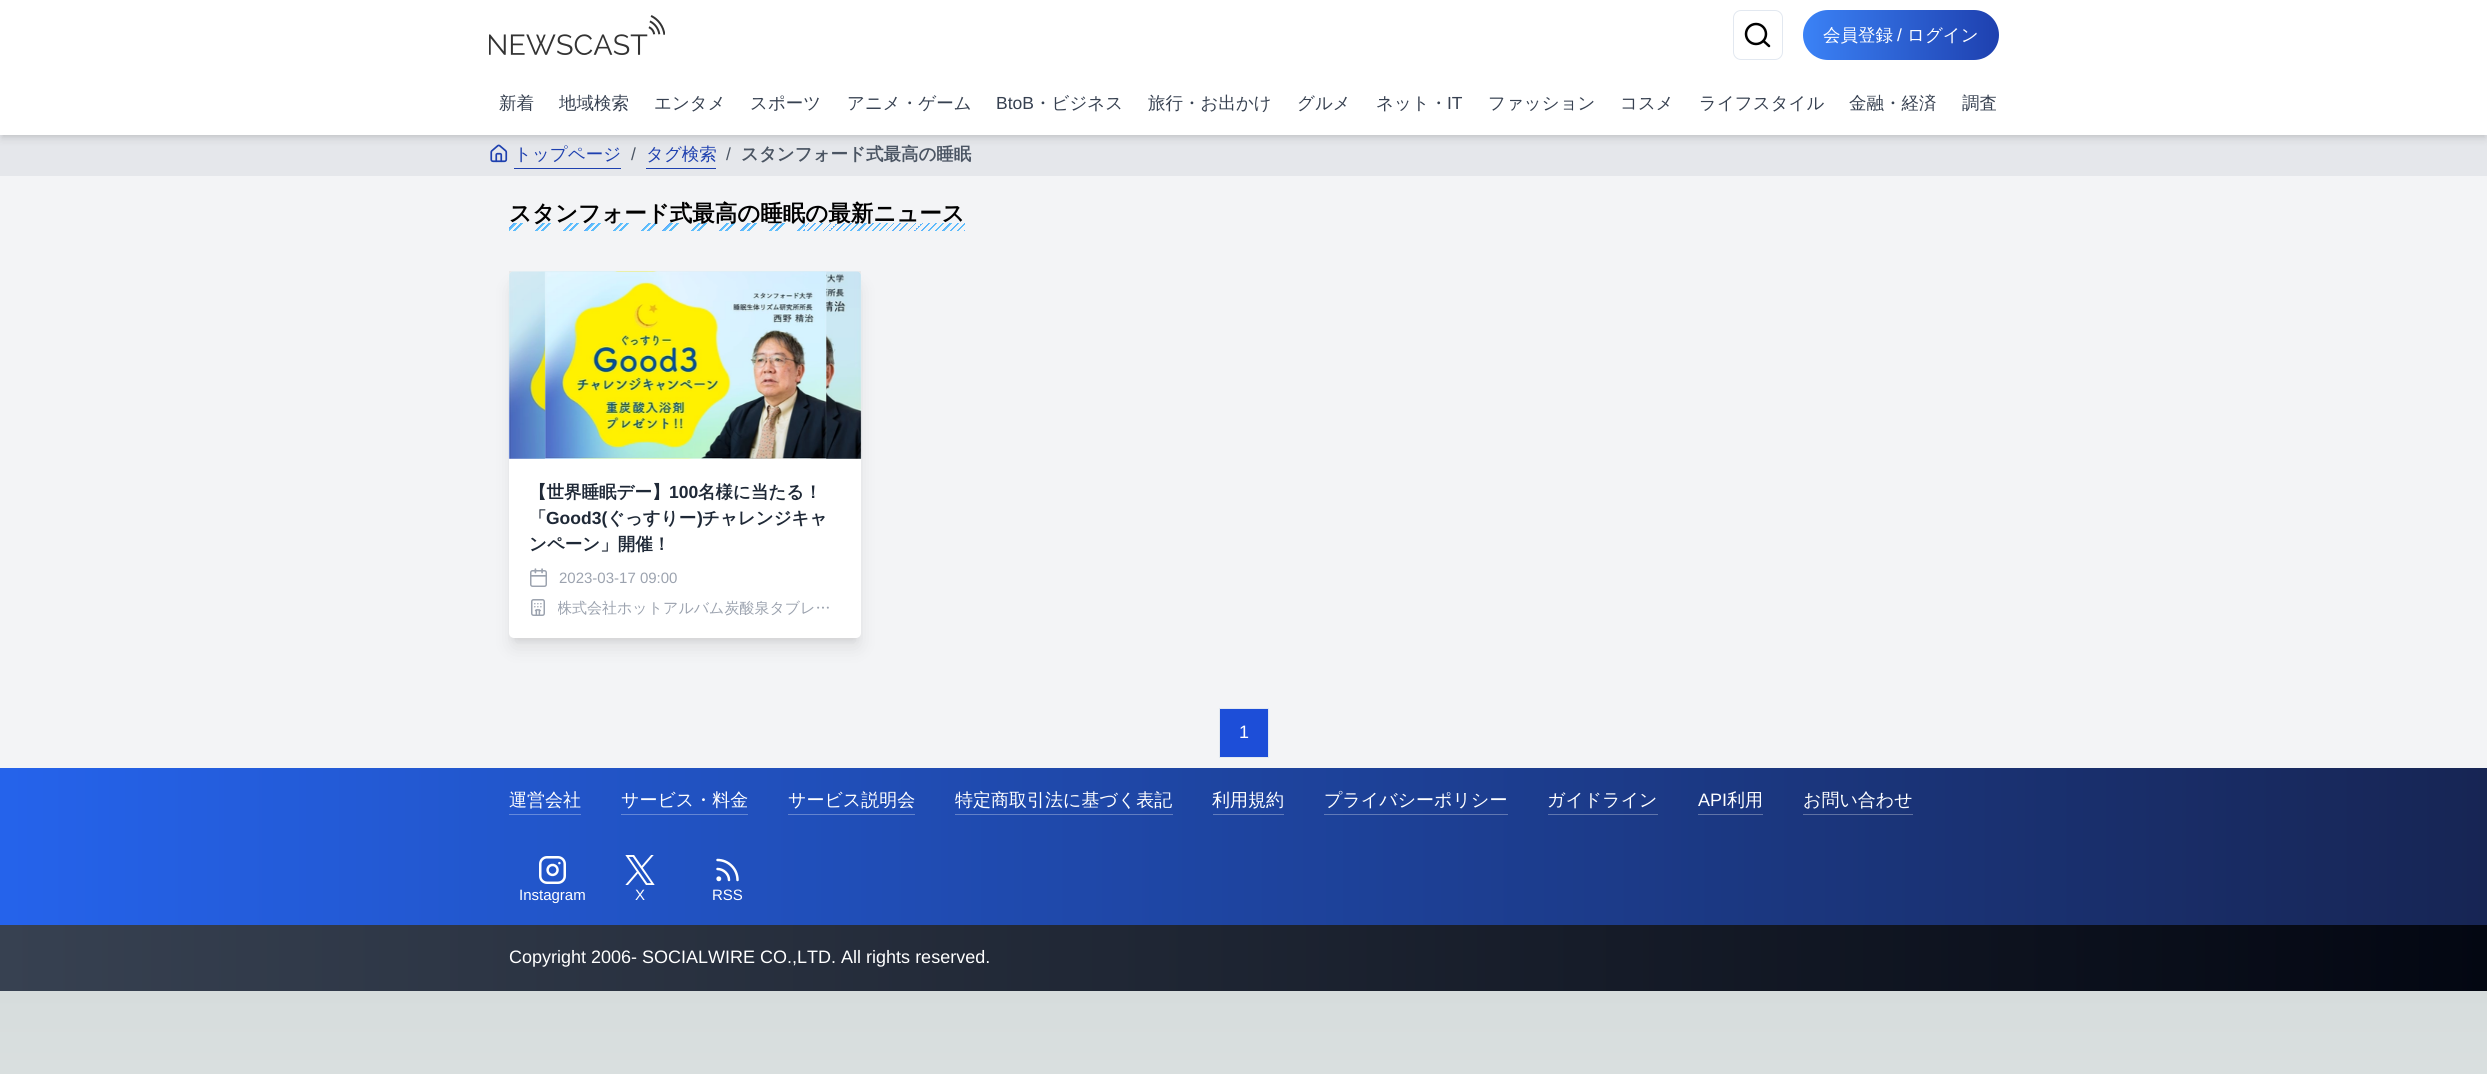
import math
import cairo

surface = cairo.ImageSurface(cairo.Format.RGB24, 2487, 1074)
ctx = cairo.Context(surface)
options = cairo.FontOptions()
options.set_hint_metrics(cairo.HintMetrics.OFF)
options.set_hint_style(cairo.HintStyle.NONE)
ctx.set_font_options(options)
ctx.set_miter_limit(4)


def ink(r, g, b):
    ctx.set_source_rgb(r / 255, g / 255, b / 255)


def write(x, y, s, family, size, color, bold=False, italic=False):
    ctx.select_font_face(family, cairo.FontSlant.ITALIC if italic else cairo.FontSlant.NORMAL, cairo.FontWeight.BOLD if bold else cairo.FontWeight.NORMAL)
    ctx.set_font_size(size)
    ink(*color)
    ctx.move_to(x, y)
    ctx.show_text(s)


def block(x, y, w, h, *color):
    ink(*color)
    ctx.rectangle(x, y, w, h)
    ctx.fill()


def round_path(x, y, w, h, r):
    ctx.new_sub_path()
    for i, (u, v) in enumerate([(x + w - r, y + h - r), (x + r, y + h - r), (x + r, y + r), (x + w - r, y + r)]):
        ctx.arc(u, v, r, i * math.pi / 2, (i + 1) * math.pi / 2)
    ctx.close_path()


def blur_box(x, y, w, h, r, blur, alpha):
    ctx.push_group_with_content(cairo.Content.ALPHA)
    ctx.set_operator(cairo.Operator.SOURCE)
    for i in range(15, -16, -2):
        e = blur * i / 6
        if min(w, h) + 2 * e > 0:
            ctx.set_source_rgba(0, 0, 0, alpha * math.erfc((i - 1) / 8.5) / 2)
            round_path(x - e, y - e, w + 2 * e, h + 2 * e, max(0, min(r + e + blur * .6, min(w, h) / 2 + e)))
            ctx.fill()
    ctx.mask(ctx.pop_group())


def paste(path, x, y, w, h):
    ctx.save()
    ctx.set_source_surface(cairo.ImageSurface.create_from_png(path), x, y)
    ctx.rectangle(x, y, w, h)
    ctx.fill()
    ctx.restore()


s1 = dict(family="WenQuanYi Zen Hei Medium", size=17.5, color=(255, 255, 255))
s2 = dict(family="Liberation Sans", size=17.5, color=(255, 255, 255))
s3 = dict(family="WenQuanYi Zen Hei Medium", size=17.5, color=(55, 65, 81))
s4 = dict(family="Liberation Sans", size=17.5, color=(55, 65, 81))
s5 = dict(family="WenQuanYi Zen Hei Medium", size=17.5, color=(30, 64, 175))
s6 = dict(family="Liberation Sans", size=17.5, color=(75, 85, 99))
s7 = dict(family="WenQuanYi Zen Hei", size=17.5, color=(75, 85, 99), bold=True)
s8 = dict(family="WenQuanYi Zen Hei", size=22.5, color=(0, 0, 0), bold=True)
s9 = dict(family="WenQuanYi Zen Hei", size=17.5, color=(31, 41, 55), bold=True)
s10 = dict(family="Liberation Sans", size=17.5, color=(31, 41, 55), bold=True)
s11 = dict(family="Liberation Sans", size=15, color=(156, 163, 175))
s12 = dict(family="WenQuanYi Zen Hei Medium", size=15, color=(156, 163, 175))
s13 = dict(family="Liberation Sans", size=18, color=(255, 255, 255))
s14 = dict(family="WenQuanYi Zen Hei Medium", size=18, color=(255, 255, 255))
s15 = dict(family="Liberation Sans", size=15, color=(255, 255, 255))

ink(255, 255, 255)
ctx.paint()
gradient = cairo.LinearGradient(1244, 991, 1244, 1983)
gradient.add_color_stop_rgba(0, 0.839, 0.863, 0.863, 1)
gradient.add_color_stop_rgba(1, 1, 1, 1, 1)
ctx.set_source(gradient)
ctx.rectangle(0, 991, 2487, 83)
ctx.fill()
block(0, 176, 2487, 592, 243, 244, 246)
block(0, 135, 2487, 41, 229, 231, 235)
ink(0, 0, 0)
blur_box(3, 5, 2482, 130, 0, 2.5, 0.1)
paste("pic2.png", 490, 144, 18, 19)
blur_box(1, 6, 2485, 133, 0, 4, 0.1)
block(0, 0, 2487, 135, 255, 255, 255)
paste("pic1.png", 489, 15, 176, 40)
round_path(1733.5, 10.5, 49, 49, 7.5)
ink(226, 232, 240)
ctx.set_line_width(1)
ctx.stroke()
ctx.arc(1756, 34, 10, 0, 2 * math.pi)
ink(0, 0, 0)
ctx.set_line_width(2.5)
ctx.stroke()
ctx.new_path()
ctx.move_to(1769, 46)
ctx.line_to(1763.5, 41)
ctx.set_line_cap(cairo.LineCap.ROUND)
ctx.set_line_join(cairo.LineJoin.ROUND)
ctx.stroke()
gradient = cairo.LinearGradient(1803, 35, 1999, 35)
gradient.add_color_stop_rgba(0, 0.231, 0.51, 0.965, 1)
gradient.add_color_stop_rgba(1, 0.118, 0.251, 0.686, 1)
ctx.set_source(gradient)
round_path(1803, 10, 196, 50, 25)
ctx.fill()
write(1823, 41, "会員登録", **s1)
write(1897, 41, "/", **s2)
write(1907, 41, "ログイン", **s1)
write(499, 109, "新着", **s3)
write(559, 109, "地域検索", **s3)
write(654, 109, "エンタメ", **s3)
write(750, 109, "スポーツ", **s3)
write(847, 109, "アニメ・ゲーム", **s3)
write(996, 109, "BtoB", **s4)
write(1034, 109, "・ビジネス", **s3)
write(1148, 109, "旅行・お出かけ", **s3)
write(1297, 109, "グルメ", **s3)
write(1376, 109, "ネット・", **s3)
write(1447, 109, "IT", **s4)
write(1488, 109, "ファッション", **s3)
write(1620, 109, "コスメ", **s3)
write(1699, 109, "ライフスタイル", **s3)
write(1849, 109, "金融・経済", **s3)
write(1962, 109, "調査", **s3)
write(514, 160, "トップページ", **s5)
block(514, 168, 107, 1, 30, 64, 175)
write(631, 160, "/", **s6)
write(646, 160, "タグ検索", **s5)
block(646, 168, 70, 1, 30, 64, 175)
write(726, 160, "/", **s6)
write(741, 160, "スタンフォード式最高の睡眠", **s7)
gradient = cairo.LinearGradient(733, 303, 578, 147)
gradient.add_color_stop_rgba(0, 0.369, 0.808, 0.988, 1)
gradient.add_color_stop_rgba(0.01, 0.369, 0.651, 0.988, 1)
gradient.add_color_stop_rgba(0.01, 0.953, 0.957, 0.965, 1)
gradient.add_color_stop_rgba(0.02, 0.953, 0.957, 0.965, 1)
gradient.add_color_stop_rgba(0.02, 0.369, 0.808, 0.988, 1)
gradient.add_color_stop_rgba(0.03, 0.369, 0.651, 0.988, 1)
gradient.add_color_stop_rgba(0.03, 0.953, 0.957, 0.965, 1)
gradient.add_color_stop_rgba(0.05, 0.953, 0.957, 0.965, 1)
gradient.add_color_stop_rgba(0.05, 0.369, 0.808, 0.988, 1)
gradient.add_color_stop_rgba(0.05, 0.369, 0.651, 0.988, 1)
gradient.add_color_stop_rgba(0.05, 0.953, 0.957, 0.965, 1)
gradient.add_color_stop_rgba(0.07, 0.953, 0.957, 0.965, 1)
gradient.add_color_stop_rgba(0.07, 0.369, 0.808, 0.988, 1)
gradient.add_color_stop_rgba(0.07, 0.369, 0.651, 0.988, 1)
gradient.add_color_stop_rgba(0.07, 0.953, 0.957, 0.965, 1)
gradient.add_color_stop_rgba(0.09, 0.953, 0.957, 0.965, 1)
gradient.add_color_stop_rgba(0.09, 0.369, 0.808, 0.988, 1)
gradient.add_color_stop_rgba(0.1, 0.369, 0.651, 0.988, 1)
gradient.add_color_stop_rgba(0.1, 0.953, 0.957, 0.965, 1)
gradient.add_color_stop_rgba(0.11, 0.953, 0.957, 0.965, 1)
gradient.add_color_stop_rgba(0.11, 0.369, 0.808, 0.988, 1)
gradient.add_color_stop_rgba(0.12, 0.369, 0.651, 0.988, 1)
gradient.add_color_stop_rgba(0.12, 0.953, 0.957, 0.965, 1)
gradient.add_color_stop_rgba(0.14, 0.953, 0.957, 0.965, 1)
gradient.add_color_stop_rgba(0.14, 0.369, 0.808, 0.988, 1)
gradient.add_color_stop_rgba(0.14, 0.369, 0.651, 0.988, 1)
gradient.add_color_stop_rgba(0.14, 0.953, 0.957, 0.965, 1)
gradient.add_color_stop_rgba(0.16, 0.953, 0.957, 0.965, 1)
gradient.add_color_stop_rgba(0.16, 0.369, 0.808, 0.988, 1)
gradient.add_color_stop_rgba(0.16, 0.369, 0.651, 0.988, 1)
gradient.add_color_stop_rgba(0.16, 0.953, 0.957, 0.965, 1)
gradient.add_color_stop_rgba(0.18, 0.953, 0.957, 0.965, 1)
gradient.add_color_stop_rgba(0.18, 0.369, 0.808, 0.988, 1)
gradient.add_color_stop_rgba(0.19, 0.369, 0.651, 0.988, 1)
gradient.add_color_stop_rgba(0.19, 0.953, 0.957, 0.965, 1)
gradient.add_color_stop_rgba(0.2, 0.953, 0.957, 0.965, 1)
gradient.add_color_stop_rgba(0.2, 0.369, 0.808, 0.988, 1)
gradient.add_color_stop_rgba(0.21, 0.369, 0.651, 0.988, 1)
gradient.add_color_stop_rgba(0.21, 0.953, 0.957, 0.965, 1)
gradient.add_color_stop_rgba(0.23, 0.953, 0.957, 0.965, 1)
gradient.add_color_stop_rgba(0.23, 0.369, 0.808, 0.988, 1)
gradient.add_color_stop_rgba(0.23, 0.369, 0.651, 0.988, 1)
gradient.add_color_stop_rgba(0.23, 0.953, 0.957, 0.965, 1)
gradient.add_color_stop_rgba(0.25, 0.953, 0.957, 0.965, 1)
gradient.add_color_stop_rgba(0.25, 0.369, 0.808, 0.988, 1)
gradient.add_color_stop_rgba(0.26, 0.369, 0.651, 0.988, 1)
gradient.add_color_stop_rgba(0.26, 0.953, 0.957, 0.965, 1)
gradient.add_color_stop_rgba(0.27, 0.953, 0.957, 0.965, 1)
gradient.add_color_stop_rgba(0.27, 0.369, 0.808, 0.988, 1)
gradient.add_color_stop_rgba(0.28, 0.369, 0.651, 0.988, 1)
gradient.add_color_stop_rgba(0.28, 0.953, 0.957, 0.965, 1)
gradient.add_color_stop_rgba(0.3, 0.953, 0.957, 0.965, 1)
gradient.add_color_stop_rgba(0.3, 0.369, 0.808, 0.988, 1)
gradient.add_color_stop_rgba(0.3, 0.369, 0.651, 0.988, 1)
gradient.add_color_stop_rgba(0.3, 0.953, 0.957, 0.965, 1)
gradient.add_color_stop_rgba(0.32, 0.953, 0.957, 0.965, 1)
gradient.add_color_stop_rgba(0.32, 0.369, 0.808, 0.988, 1)
gradient.add_color_stop_rgba(0.32, 0.369, 0.651, 0.988, 1)
gradient.add_color_stop_rgba(0.32, 0.953, 0.957, 0.965, 1)
gradient.add_color_stop_rgba(0.34, 0.953, 0.957, 0.965, 1)
gradient.add_color_stop_rgba(0.34, 0.369, 0.808, 0.988, 1)
gradient.add_color_stop_rgba(0.35, 0.369, 0.651, 0.988, 1)
gradient.add_color_stop_rgba(0.35, 0.953, 0.957, 0.965, 1)
gradient.add_color_stop_rgba(0.36, 0.953, 0.957, 0.965, 1)
gradient.add_color_stop_rgba(0.36, 0.369, 0.808, 0.988, 1)
gradient.add_color_stop_rgba(0.37, 0.369, 0.651, 0.988, 1)
gradient.add_color_stop_rgba(0.37, 0.953, 0.957, 0.965, 1)
gradient.add_color_stop_rgba(0.39, 0.953, 0.957, 0.965, 1)
gradient.add_color_stop_rgba(0.39, 0.369, 0.808, 0.988, 1)
gradient.add_color_stop_rgba(0.39, 0.369, 0.651, 0.988, 1)
gradient.add_color_stop_rgba(0.39, 0.953, 0.957, 0.965, 1)
gradient.add_color_stop_rgba(0.41, 0.953, 0.957, 0.965, 1)
gradient.add_color_stop_rgba(0.41, 0.369, 0.808, 0.988, 1)
gradient.add_color_stop_rgba(0.41, 0.369, 0.651, 0.988, 1)
gradient.add_color_stop_rgba(0.41, 0.953, 0.957, 0.965, 1)
gradient.add_color_stop_rgba(0.43, 0.953, 0.957, 0.965, 1)
gradient.add_color_stop_rgba(0.43, 0.369, 0.808, 0.988, 1)
gradient.add_color_stop_rgba(0.44, 0.369, 0.651, 0.988, 1)
gradient.add_color_stop_rgba(0.44, 0.953, 0.957, 0.965, 1)
gradient.add_color_stop_rgba(0.45, 0.953, 0.957, 0.965, 1)
gradient.add_color_stop_rgba(0.45, 0.369, 0.808, 0.988, 1)
gradient.add_color_stop_rgba(0.46, 0.369, 0.651, 0.988, 1)
gradient.add_color_stop_rgba(0.46, 0.953, 0.957, 0.965, 1)
gradient.add_color_stop_rgba(0.48, 0.953, 0.957, 0.965, 1)
gradient.add_color_stop_rgba(0.48, 0.369, 0.808, 0.988, 1)
gradient.add_color_stop_rgba(0.48, 0.369, 0.651, 0.988, 1)
gradient.add_color_stop_rgba(0.48, 0.953, 0.957, 0.965, 1)
gradient.add_color_stop_rgba(0.5, 0.953, 0.957, 0.965, 1)
gradient.add_color_stop_rgba(0.5, 0.369, 0.808, 0.988, 1)
gradient.add_color_stop_rgba(0.51, 0.369, 0.651, 0.988, 1)
gradient.add_color_stop_rgba(0.51, 0.953, 0.957, 0.965, 1)
gradient.add_color_stop_rgba(0.52, 0.953, 0.957, 0.965, 1)
gradient.add_color_stop_rgba(0.52, 0.369, 0.808, 0.988, 1)
gradient.add_color_stop_rgba(0.53, 0.369, 0.651, 0.988, 1)
gradient.add_color_stop_rgba(0.53, 0.953, 0.957, 0.965, 1)
gradient.add_color_stop_rgba(0.55, 0.953, 0.957, 0.965, 1)
gradient.add_color_stop_rgba(0.55, 0.369, 0.808, 0.988, 1)
gradient.add_color_stop_rgba(0.55, 0.369, 0.651, 0.988, 1)
gradient.add_color_stop_rgba(0.55, 0.953, 0.957, 0.965, 1)
gradient.add_color_stop_rgba(0.57, 0.953, 0.957, 0.965, 1)
gradient.add_color_stop_rgba(0.57, 0.369, 0.808, 0.988, 1)
gradient.add_color_stop_rgba(0.57, 0.369, 0.651, 0.988, 1)
gradient.add_color_stop_rgba(0.57, 0.953, 0.957, 0.965, 1)
gradient.add_color_stop_rgba(0.59, 0.953, 0.957, 0.965, 1)
gradient.add_color_stop_rgba(0.59, 0.369, 0.808, 0.988, 1)
gradient.add_color_stop_rgba(0.6, 0.369, 0.651, 0.988, 1)
gradient.add_color_stop_rgba(0.6, 0.953, 0.957, 0.965, 1)
gradient.add_color_stop_rgba(0.61, 0.953, 0.957, 0.965, 1)
gradient.add_color_stop_rgba(0.61, 0.369, 0.808, 0.988, 1)
gradient.add_color_stop_rgba(0.62, 0.369, 0.651, 0.988, 1)
gradient.add_color_stop_rgba(0.62, 0.953, 0.957, 0.965, 1)
gradient.add_color_stop_rgba(0.64, 0.953, 0.957, 0.965, 1)
gradient.add_color_stop_rgba(0.64, 0.369, 0.808, 0.988, 1)
gradient.add_color_stop_rgba(0.64, 0.369, 0.651, 0.988, 1)
gradient.add_color_stop_rgba(0.64, 0.953, 0.957, 0.965, 1)
gradient.add_color_stop_rgba(0.66, 0.953, 0.957, 0.965, 1)
gradient.add_color_stop_rgba(0.66, 0.369, 0.808, 0.988, 1)
gradient.add_color_stop_rgba(0.66, 0.369, 0.651, 0.988, 1)
gradient.add_color_stop_rgba(0.66, 0.953, 0.957, 0.965, 1)
gradient.add_color_stop_rgba(0.68, 0.953, 0.957, 0.965, 1)
gradient.add_color_stop_rgba(0.68, 0.369, 0.808, 0.988, 1)
gradient.add_color_stop_rgba(0.69, 0.369, 0.651, 0.988, 1)
gradient.add_color_stop_rgba(0.69, 0.953, 0.957, 0.965, 1)
gradient.add_color_stop_rgba(0.7, 0.953, 0.957, 0.965, 1)
gradient.add_color_stop_rgba(0.7, 0.369, 0.808, 0.988, 1)
gradient.add_color_stop_rgba(0.71, 0.369, 0.651, 0.988, 1)
gradient.add_color_stop_rgba(0.71, 0.953, 0.957, 0.965, 1)
gradient.add_color_stop_rgba(0.73, 0.953, 0.957, 0.965, 1)
gradient.add_color_stop_rgba(0.73, 0.369, 0.808, 0.988, 1)
gradient.add_color_stop_rgba(0.73, 0.369, 0.651, 0.988, 1)
gradient.add_color_stop_rgba(0.73, 0.953, 0.957, 0.965, 1)
gradient.add_color_stop_rgba(0.75, 0.953, 0.957, 0.965, 1)
gradient.add_color_stop_rgba(0.75, 0.369, 0.808, 0.988, 1)
gradient.add_color_stop_rgba(0.76, 0.369, 0.651, 0.988, 1)
gradient.add_color_stop_rgba(0.76, 0.953, 0.957, 0.965, 1)
gradient.add_color_stop_rgba(0.77, 0.953, 0.957, 0.965, 1)
gradient.add_color_stop_rgba(0.77, 0.369, 0.808, 0.988, 1)
gradient.add_color_stop_rgba(0.78, 0.369, 0.651, 0.988, 1)
gradient.add_color_stop_rgba(0.78, 0.953, 0.957, 0.965, 1)
gradient.add_color_stop_rgba(0.8, 0.953, 0.957, 0.965, 1)
gradient.add_color_stop_rgba(0.8, 0.369, 0.808, 0.988, 1)
gradient.add_color_stop_rgba(0.8, 0.369, 0.651, 0.988, 1)
gradient.add_color_stop_rgba(0.8, 0.953, 0.957, 0.965, 1)
gradient.add_color_stop_rgba(0.82, 0.953, 0.957, 0.965, 1)
gradient.add_color_stop_rgba(0.82, 0.369, 0.808, 0.988, 1)
gradient.add_color_stop_rgba(0.82, 0.369, 0.651, 0.988, 1)
gradient.add_color_stop_rgba(0.82, 0.953, 0.957, 0.965, 1)
gradient.add_color_stop_rgba(0.84, 0.953, 0.957, 0.965, 1)
gradient.add_color_stop_rgba(0.84, 0.369, 0.808, 0.988, 1)
gradient.add_color_stop_rgba(0.85, 0.369, 0.651, 0.988, 1)
gradient.add_color_stop_rgba(0.85, 0.953, 0.957, 0.965, 1)
gradient.add_color_stop_rgba(0.86, 0.953, 0.957, 0.965, 1)
gradient.add_color_stop_rgba(0.86, 0.369, 0.808, 0.988, 1)
gradient.add_color_stop_rgba(0.87, 0.369, 0.651, 0.988, 1)
gradient.add_color_stop_rgba(0.87, 0.953, 0.957, 0.965, 1)
gradient.add_color_stop_rgba(0.89, 0.953, 0.957, 0.965, 1)
gradient.add_color_stop_rgba(0.89, 0.369, 0.808, 0.988, 1)
gradient.add_color_stop_rgba(0.89, 0.369, 0.651, 0.988, 1)
gradient.add_color_stop_rgba(0.89, 0.953, 0.957, 0.965, 1)
gradient.add_color_stop_rgba(0.91, 0.953, 0.957, 0.965, 1)
gradient.add_color_stop_rgba(0.91, 0.369, 0.808, 0.988, 1)
gradient.add_color_stop_rgba(0.91, 0.369, 0.651, 0.988, 1)
gradient.add_color_stop_rgba(0.91, 0.953, 0.957, 0.965, 1)
gradient.add_color_stop_rgba(0.93, 0.953, 0.957, 0.965, 1)
gradient.add_color_stop_rgba(0.93, 0.369, 0.808, 0.988, 1)
gradient.add_color_stop_rgba(0.94, 0.369, 0.651, 0.988, 1)
gradient.add_color_stop_rgba(0.94, 0.953, 0.957, 0.965, 1)
gradient.add_color_stop_rgba(0.95, 0.953, 0.957, 0.965, 1)
gradient.add_color_stop_rgba(0.95, 0.369, 0.808, 0.988, 1)
gradient.add_color_stop_rgba(0.96, 0.369, 0.651, 0.988, 1)
gradient.add_color_stop_rgba(0.96, 0.953, 0.957, 0.965, 1)
gradient.add_color_stop_rgba(0.98, 0.953, 0.957, 0.965, 1)
gradient.add_color_stop_rgba(0.98, 0.369, 0.808, 0.988, 1)
gradient.add_color_stop_rgba(0.98, 0.369, 0.651, 0.988, 1)
gradient.add_color_stop_rgba(0.98, 0.953, 0.957, 0.965, 1)
gradient.add_color_stop_rgba(1, 0.953, 0.957, 0.965, 1)
ctx.set_source(gradient)
ctx.rectangle(509, 223, 296, 8)
ctx.fill()
gradient = cairo.LinearGradient(927, 269, 842, 184)
gradient.add_color_stop_rgba(0, 0.369, 0.808, 0.988, 1)
gradient.add_color_stop_rgba(0.01, 0.369, 0.651, 0.988, 1)
gradient.add_color_stop_rgba(0.01, 0.953, 0.957, 0.965, 1)
gradient.add_color_stop_rgba(0.04, 0.953, 0.957, 0.965, 1)
gradient.add_color_stop_rgba(0.04, 0.369, 0.808, 0.988, 1)
gradient.add_color_stop_rgba(0.05, 0.369, 0.651, 0.988, 1)
gradient.add_color_stop_rgba(0.05, 0.953, 0.957, 0.965, 1)
gradient.add_color_stop_rgba(0.08, 0.953, 0.957, 0.965, 1)
gradient.add_color_stop_rgba(0.08, 0.369, 0.808, 0.988, 1)
gradient.add_color_stop_rgba(0.09, 0.369, 0.651, 0.988, 1)
gradient.add_color_stop_rgba(0.09, 0.953, 0.957, 0.965, 1)
gradient.add_color_stop_rgba(0.12, 0.953, 0.957, 0.965, 1)
gradient.add_color_stop_rgba(0.12, 0.369, 0.808, 0.988, 1)
gradient.add_color_stop_rgba(0.14, 0.369, 0.651, 0.988, 1)
gradient.add_color_stop_rgba(0.14, 0.953, 0.957, 0.965, 1)
gradient.add_color_stop_rgba(0.17, 0.953, 0.957, 0.965, 1)
gradient.add_color_stop_rgba(0.17, 0.369, 0.808, 0.988, 1)
gradient.add_color_stop_rgba(0.18, 0.369, 0.651, 0.988, 1)
gradient.add_color_stop_rgba(0.18, 0.953, 0.957, 0.965, 1)
gradient.add_color_stop_rgba(0.21, 0.953, 0.957, 0.965, 1)
gradient.add_color_stop_rgba(0.21, 0.369, 0.808, 0.988, 1)
gradient.add_color_stop_rgba(0.22, 0.369, 0.651, 0.988, 1)
gradient.add_color_stop_rgba(0.22, 0.953, 0.957, 0.965, 1)
gradient.add_color_stop_rgba(0.25, 0.953, 0.957, 0.965, 1)
gradient.add_color_stop_rgba(0.25, 0.369, 0.808, 0.988, 1)
gradient.add_color_stop_rgba(0.26, 0.369, 0.651, 0.988, 1)
gradient.add_color_stop_rgba(0.26, 0.953, 0.957, 0.965, 1)
gradient.add_color_stop_rgba(0.29, 0.953, 0.957, 0.965, 1)
gradient.add_color_stop_rgba(0.29, 0.369, 0.808, 0.988, 1)
gradient.add_color_stop_rgba(0.3, 0.369, 0.651, 0.988, 1)
gradient.add_color_stop_rgba(0.3, 0.953, 0.957, 0.965, 1)
gradient.add_color_stop_rgba(0.33, 0.953, 0.957, 0.965, 1)
gradient.add_color_stop_rgba(0.33, 0.369, 0.808, 0.988, 1)
gradient.add_color_stop_rgba(0.34, 0.369, 0.651, 0.988, 1)
gradient.add_color_stop_rgba(0.34, 0.953, 0.957, 0.965, 1)
gradient.add_color_stop_rgba(0.38, 0.953, 0.957, 0.965, 1)
gradient.add_color_stop_rgba(0.38, 0.369, 0.808, 0.988, 1)
gradient.add_color_stop_rgba(0.39, 0.369, 0.651, 0.988, 1)
gradient.add_color_stop_rgba(0.39, 0.953, 0.957, 0.965, 1)
gradient.add_color_stop_rgba(0.42, 0.953, 0.957, 0.965, 1)
gradient.add_color_stop_rgba(0.42, 0.369, 0.808, 0.988, 1)
gradient.add_color_stop_rgba(0.43, 0.369, 0.651, 0.988, 1)
gradient.add_color_stop_rgba(0.43, 0.953, 0.957, 0.965, 1)
gradient.add_color_stop_rgba(0.46, 0.953, 0.957, 0.965, 1)
gradient.add_color_stop_rgba(0.46, 0.369, 0.808, 0.988, 1)
gradient.add_color_stop_rgba(0.47, 0.369, 0.651, 0.988, 1)
gradient.add_color_stop_rgba(0.47, 0.953, 0.957, 0.965, 1)
gradient.add_color_stop_rgba(0.5, 0.953, 0.957, 0.965, 1)
gradient.add_color_stop_rgba(0.5, 0.369, 0.808, 0.988, 1)
gradient.add_color_stop_rgba(0.51, 0.369, 0.651, 0.988, 1)
gradient.add_color_stop_rgba(0.51, 0.953, 0.957, 0.965, 1)
gradient.add_color_stop_rgba(0.54, 0.953, 0.957, 0.965, 1)
gradient.add_color_stop_rgba(0.54, 0.369, 0.808, 0.988, 1)
gradient.add_color_stop_rgba(0.55, 0.369, 0.651, 0.988, 1)
gradient.add_color_stop_rgba(0.55, 0.953, 0.957, 0.965, 1)
gradient.add_color_stop_rgba(0.58, 0.953, 0.957, 0.965, 1)
gradient.add_color_stop_rgba(0.58, 0.369, 0.808, 0.988, 1)
gradient.add_color_stop_rgba(0.59, 0.369, 0.651, 0.988, 1)
gradient.add_color_stop_rgba(0.59, 0.953, 0.957, 0.965, 1)
gradient.add_color_stop_rgba(0.62, 0.953, 0.957, 0.965, 1)
gradient.add_color_stop_rgba(0.62, 0.369, 0.808, 0.988, 1)
gradient.add_color_stop_rgba(0.64, 0.369, 0.651, 0.988, 1)
gradient.add_color_stop_rgba(0.64, 0.953, 0.957, 0.965, 1)
gradient.add_color_stop_rgba(0.67, 0.953, 0.957, 0.965, 1)
gradient.add_color_stop_rgba(0.67, 0.369, 0.808, 0.988, 1)
gradient.add_color_stop_rgba(0.68, 0.369, 0.651, 0.988, 1)
gradient.add_color_stop_rgba(0.68, 0.953, 0.957, 0.965, 1)
gradient.add_color_stop_rgba(0.71, 0.953, 0.957, 0.965, 1)
gradient.add_color_stop_rgba(0.71, 0.369, 0.808, 0.988, 1)
gradient.add_color_stop_rgba(0.72, 0.369, 0.651, 0.988, 1)
gradient.add_color_stop_rgba(0.72, 0.953, 0.957, 0.965, 1)
gradient.add_color_stop_rgba(0.75, 0.953, 0.957, 0.965, 1)
gradient.add_color_stop_rgba(0.75, 0.369, 0.808, 0.988, 1)
gradient.add_color_stop_rgba(0.76, 0.369, 0.651, 0.988, 1)
gradient.add_color_stop_rgba(0.76, 0.953, 0.957, 0.965, 1)
gradient.add_color_stop_rgba(0.79, 0.953, 0.957, 0.965, 1)
gradient.add_color_stop_rgba(0.79, 0.369, 0.808, 0.988, 1)
gradient.add_color_stop_rgba(0.8, 0.369, 0.651, 0.988, 1)
gradient.add_color_stop_rgba(0.8, 0.953, 0.957, 0.965, 1)
gradient.add_color_stop_rgba(0.83, 0.953, 0.957, 0.965, 1)
gradient.add_color_stop_rgba(0.83, 0.369, 0.808, 0.988, 1)
gradient.add_color_stop_rgba(0.84, 0.369, 0.651, 0.988, 1)
gradient.add_color_stop_rgba(0.84, 0.953, 0.957, 0.965, 1)
gradient.add_color_stop_rgba(0.88, 0.953, 0.957, 0.965, 1)
gradient.add_color_stop_rgba(0.88, 0.369, 0.808, 0.988, 1)
gradient.add_color_stop_rgba(0.89, 0.369, 0.651, 0.988, 1)
gradient.add_color_stop_rgba(0.89, 0.953, 0.957, 0.965, 1)
gradient.add_color_stop_rgba(0.92, 0.953, 0.957, 0.965, 1)
gradient.add_color_stop_rgba(0.92, 0.369, 0.808, 0.988, 1)
gradient.add_color_stop_rgba(0.93, 0.369, 0.651, 0.988, 1)
gradient.add_color_stop_rgba(0.93, 0.953, 0.957, 0.965, 1)
gradient.add_color_stop_rgba(0.96, 0.953, 0.957, 0.965, 1)
gradient.add_color_stop_rgba(0.96, 0.369, 0.808, 0.988, 1)
gradient.add_color_stop_rgba(0.97, 0.369, 0.651, 0.988, 1)
gradient.add_color_stop_rgba(0.97, 0.953, 0.957, 0.965, 1)
gradient.add_color_stop_rgba(1, 0.953, 0.957, 0.965, 1)
ctx.set_source(gradient)
ctx.rectangle(805, 223, 160, 8)
ctx.fill()
write(509, 221, "スタンフォード式最高の睡眠の最新ニュース", **s8)
ink(0, 0, 0)
blur_box(514, 281, 342, 357, 0, 4, 0.1)
blur_box(513, 288, 345, 358, 1, 9.5, 0.1)
ink(255, 255, 255)
round_path(509, 271, 352, 367, 5)
ctx.fill()
paste("pic3.png", 508, 271, 354, 188)
ctx.set_source_rgba(0, 0, 0, 0.05)
ctx.rectangle(509, 271, 352, 188)
ctx.fill()
paste("pic4.png", 544, 271, 283, 188)
write(529, 498, "【世界睡眠デー】", **s9)
write(669, 498, "100", **s10)
write(698, 498, "名様に当たる！", **s9)
write(529, 524, "「", **s9)
write(546, 524, "Good3(", **s10)
write(607, 524, "ぐっすりー", **s9)
write(697, 524, ")", **s10)
write(702, 524, "チャレンジキャ", **s9)
write(529, 550, "ンペーン」開催！", **s9)
paste("pic5.png", 530, 568, 17, 19)
write(559, 583, "2023-03-17 09:00", **s11)
paste("pic6.png", 531, 599, 14, 17)
ctx.save()
ctx.rectangle(558, 598, 283, 20)
ctx.clip()
write(557, 613, "株式会社ホットアルバム炭酸泉タブレ…", **s12)
ctx.restore()
ink(29, 78, 216)
ctx.rectangle(1219.5, 708.5, 49, 49)
ctx.fill_preserve()
ink(226, 232, 240)
ctx.set_line_width(1)
ctx.set_line_cap(cairo.LineCap.BUTT)
ctx.set_line_join(cairo.LineJoin.MITER)
ctx.stroke()
write(1239, 738, "1", **s13)
gradient = cairo.LinearGradient(0, 846, 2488, 846)
gradient.add_color_stop_rgba(0, 0.145, 0.388, 0.922, 1)
gradient.add_color_stop_rgba(1, 0.09, 0.145, 0.329, 1)
ctx.set_source(gradient)
ctx.rectangle(0, 768, 2487, 157)
ctx.fill()
gradient = cairo.LinearGradient(0, 846, 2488, 846)
gradient.add_color_stop_rgba(0, 0.4, 0.573, 0.945, 1)
gradient.add_color_stop_rgba(1, 0.365, 0.4, 0.529, 1)
ctx.set_source(gradient)
ctx.rectangle(1803, 814, 110, 1)
ctx.fill()
ctx.rectangle(1698, 814, 65, 1)
ctx.fill()
ctx.rectangle(1548, 814, 110, 1)
ctx.fill()
ctx.rectangle(1324, 814, 184, 1)
ctx.fill()
ctx.rectangle(1213, 814, 71, 1)
ctx.fill()
ctx.rectangle(955, 814, 218, 1)
ctx.fill()
ctx.rectangle(788, 814, 127, 1)
ctx.fill()
ctx.rectangle(621, 814, 127, 1)
ctx.fill()
ctx.rectangle(509, 814, 72, 1)
ctx.fill()
write(509, 806, "運営会社", **s14)
write(621, 806, "サービス・料金", **s14)
write(788, 806, "サービス説明会", **s14)
write(955, 806, "特定商取引法に基づく表記", **s14)
write(1212, 806, "利用規約", **s14)
write(1324, 806, "プライバシーポリシー", **s14)
write(1547, 806, "ガイドライン", **s14)
write(1698, 806, "API", **s13)
write(1727, 806, "利用", **s14)
write(1803, 806, "お問い合わせ", **s14)
paste("pic7.png", 539, 856, 27, 28)
write(519, 900, "Instagram", **s15)
paste("pic8.png", 625, 855, 30, 30)
write(635, 900, "X", **s15)
ctx.new_path()
ctx.move_to(717.5, 869)
ctx.curve_to(723.5, 869, 729, 874, 729, 880)
ctx.move_to(717.5, 860)
ctx.curve_to(728.5, 860, 737.5, 869, 737.5, 880)
ctx.set_line_width(2.5)
ctx.set_line_cap(cairo.LineCap.ROUND)
ctx.set_line_join(cairo.LineJoin.ROUND)
ctx.stroke()
ctx.arc(718.8, 878.8, 1.2, 0, 2 * math.pi)
ctx.set_line_cap(cairo.LineCap.BUTT)
ctx.set_line_join(cairo.LineJoin.MITER)
ctx.stroke()
write(712, 900, "RSS", **s15)
gradient = cairo.LinearGradient(0, 958, 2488, 958)
gradient.add_color_stop_rgba(0, 0.216, 0.255, 0.318, 1)
gradient.add_color_stop_rgba(1, 0.012, 0.027, 0.071, 1)
ctx.set_source(gradient)
ctx.rectangle(0, 925, 2487, 66)
ctx.fill()
write(509, 963, "Copyright 2006- SOCIALWIRE CO.,LTD. All rights reserved.", **s13)
surface.write_to_png("screenshot.png")
